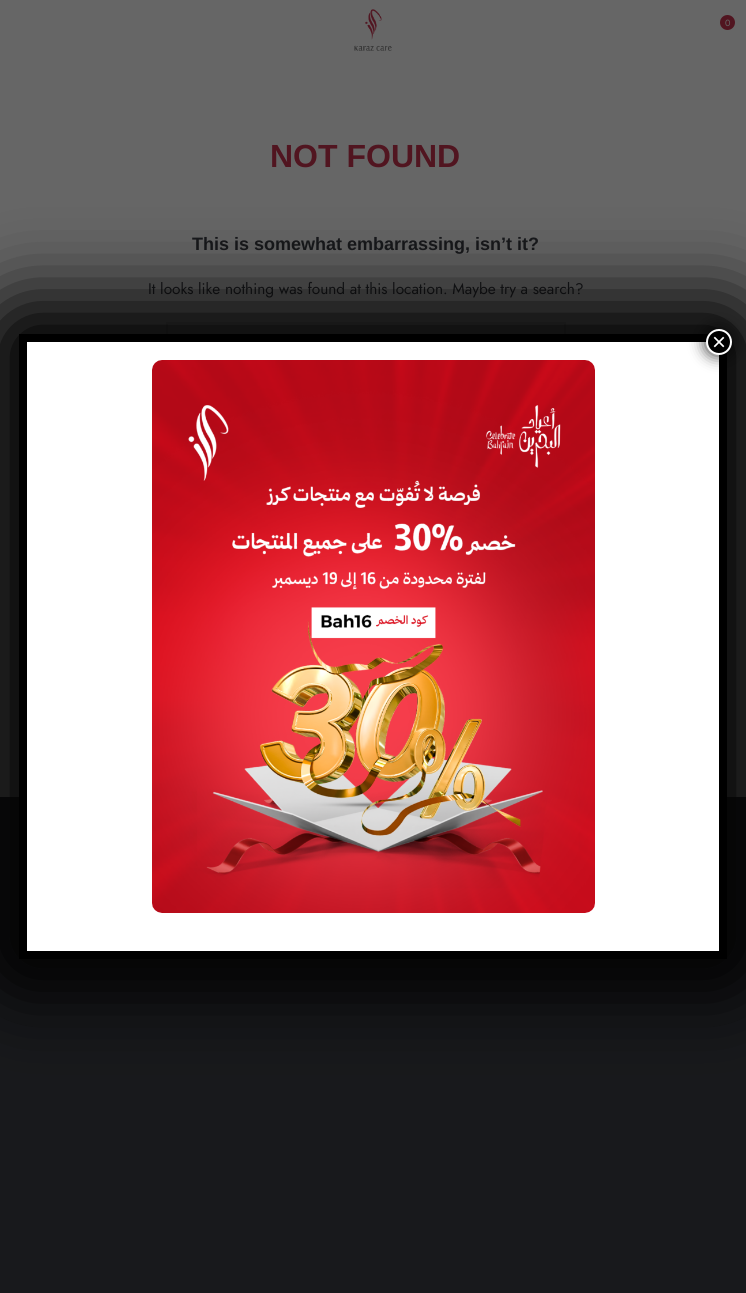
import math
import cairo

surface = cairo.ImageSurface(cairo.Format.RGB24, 746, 1293)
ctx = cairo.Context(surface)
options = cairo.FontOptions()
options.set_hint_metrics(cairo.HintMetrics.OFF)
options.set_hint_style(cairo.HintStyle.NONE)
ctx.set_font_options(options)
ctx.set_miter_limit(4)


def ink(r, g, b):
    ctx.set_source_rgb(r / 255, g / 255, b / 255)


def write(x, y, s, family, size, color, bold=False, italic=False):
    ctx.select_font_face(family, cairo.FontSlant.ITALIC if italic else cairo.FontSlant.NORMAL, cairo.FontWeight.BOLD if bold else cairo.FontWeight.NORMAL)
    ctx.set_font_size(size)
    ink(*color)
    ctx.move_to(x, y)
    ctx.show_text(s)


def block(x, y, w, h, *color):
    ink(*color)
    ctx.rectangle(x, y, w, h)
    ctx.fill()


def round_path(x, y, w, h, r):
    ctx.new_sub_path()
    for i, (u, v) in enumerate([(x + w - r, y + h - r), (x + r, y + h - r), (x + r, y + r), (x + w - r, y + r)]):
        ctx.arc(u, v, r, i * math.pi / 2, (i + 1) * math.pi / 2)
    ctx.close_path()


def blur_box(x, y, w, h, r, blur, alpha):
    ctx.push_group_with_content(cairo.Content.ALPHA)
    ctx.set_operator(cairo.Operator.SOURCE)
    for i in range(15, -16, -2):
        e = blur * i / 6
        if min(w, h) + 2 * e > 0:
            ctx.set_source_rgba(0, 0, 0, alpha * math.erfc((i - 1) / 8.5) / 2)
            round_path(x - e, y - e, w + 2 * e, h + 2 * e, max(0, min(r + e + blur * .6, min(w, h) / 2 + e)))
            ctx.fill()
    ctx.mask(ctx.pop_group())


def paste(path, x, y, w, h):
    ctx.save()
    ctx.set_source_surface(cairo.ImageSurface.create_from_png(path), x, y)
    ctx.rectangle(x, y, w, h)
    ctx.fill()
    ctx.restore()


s1 = dict(family="Jost", size=9, color=(102, 102, 102))
s2 = dict(family="Liberation Sans", size=32, color=(81, 21, 32), bold=True)
s3 = dict(family="Liberation Sans", size=18, color=(24, 25, 28), bold=True)
s4 = dict(family="Jost", size=15.4, color=(24, 25, 28))
s5 = dict(family="Liberation Sans", size=24, color=(255, 255, 255))

ink(24, 25, 28)
ctx.paint()
block(0, 0, 746, 797, 102, 102, 102)
paste("pic1.png", 354, 9, 38, 42)
ink(81, 21, 32)
ctx.arc(727.5, 22.5, 7.5, 0, 2 * math.pi)
ctx.fill()
write(725, 26, "0", **s1)
write(270, 167, "NOT FOUND", **s2)
write(192, 250, "This is somewhat embarrassing, isn’t it?", **s3)
write(148, 294, "It looks like nothing was found at this location. Maybe try a search?", **s4)
ctx.rectangle(167, 323, 398, 44)
ink(92, 92, 92)
ctx.stroke()
ink(2, 2, 2)
blur_box(-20, 295, 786, 703, 42, 35.5, 1)
block(27, 342, 692, 609, 255, 255, 255)
ctx.new_path()
ctx.move_to(23, 338)
ctx.line_to(723, 338)
ctx.line_to(723, 955)
ctx.line_to(23, 955)
ctx.close_path()
ink(0, 0, 0)
ctx.set_line_width(8)
ctx.stroke()
ink(2, 2, 2)
blur_box(705, 328, 28, 28, 14, 7.5, 0.75)
ink(0, 0, 0)
ctx.arc(719, 342, 12, 0, 2 * math.pi)
ctx.fill_preserve()
ink(255, 255, 255)
ctx.set_line_width(2)
ctx.stroke()
write(712, 350, "×", **s5)
paste("pic2.png", 152, 360, 443, 553)
surface.write_to_png("screenshot.png")
